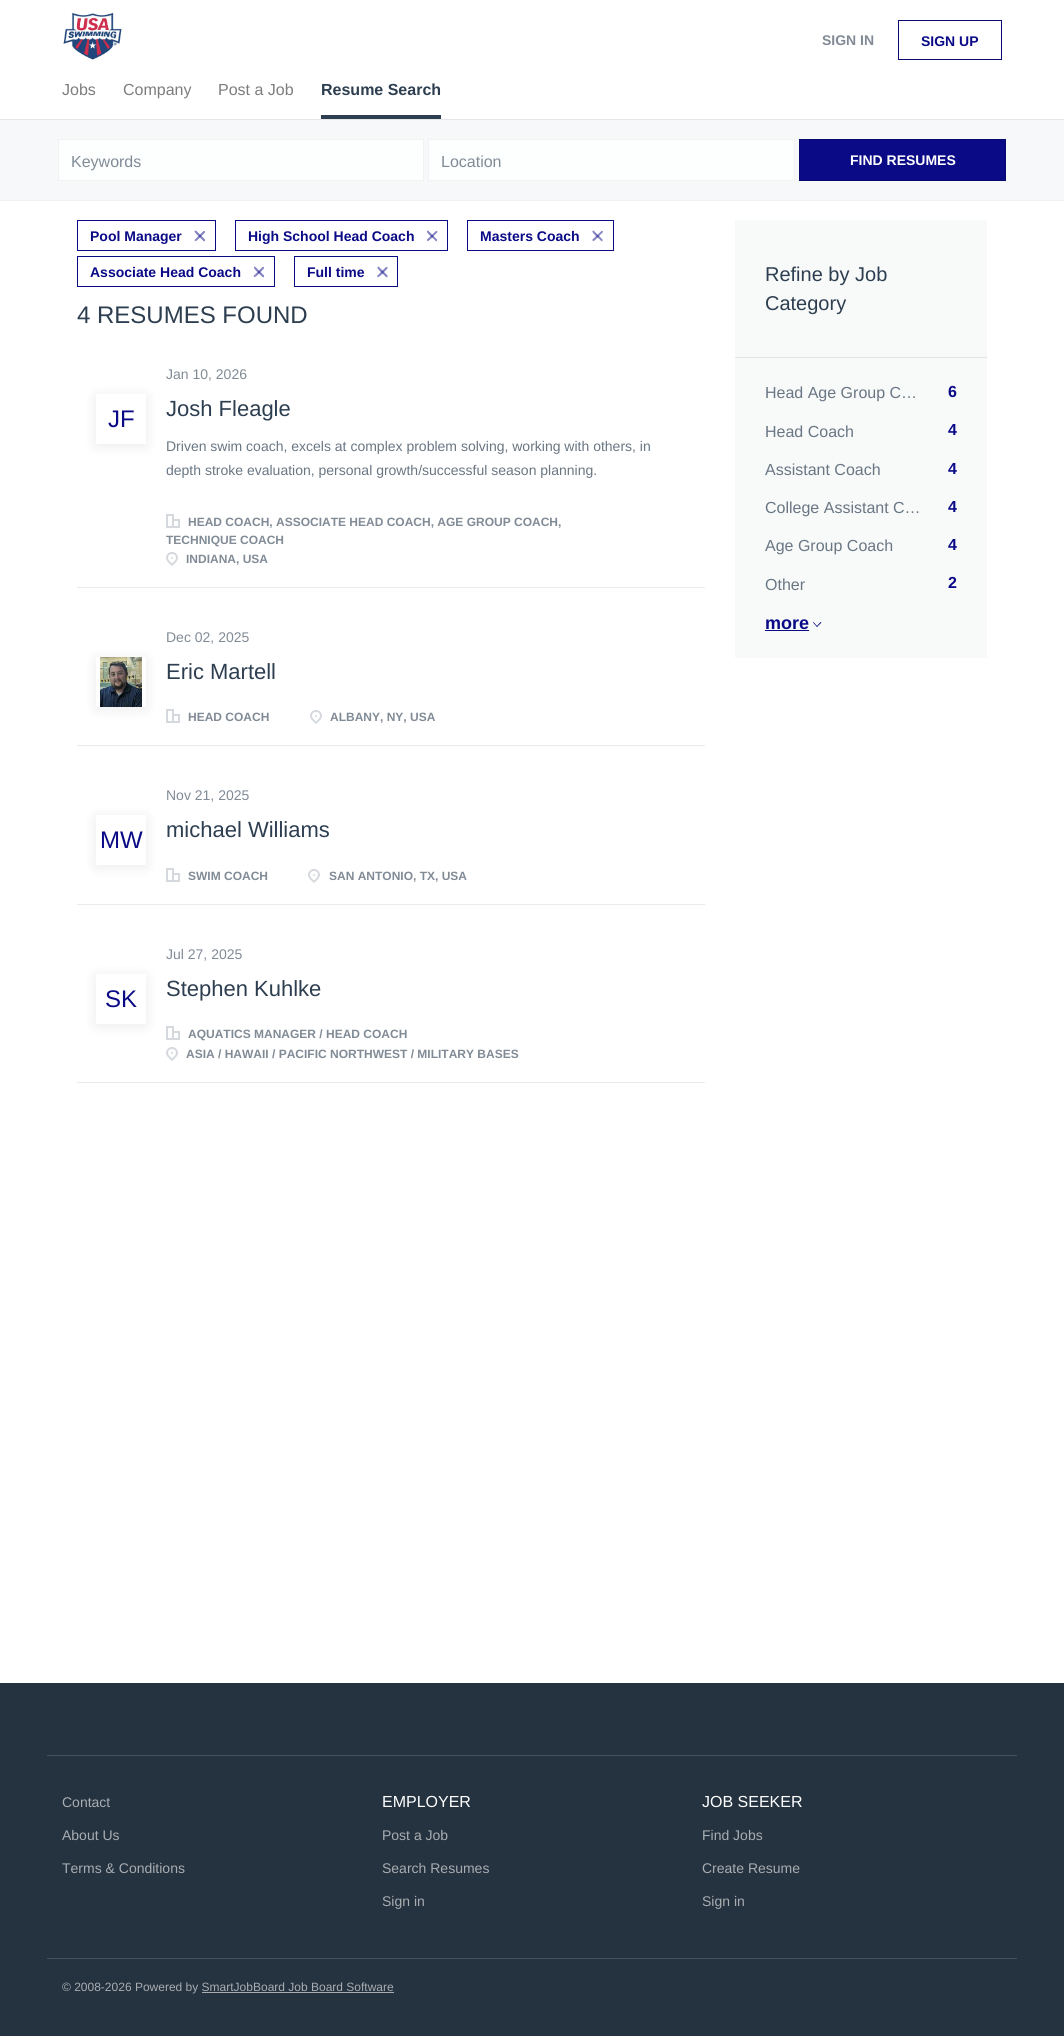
import math
import cairo

surface = cairo.ImageSurface(cairo.Format.RGB24, 1064, 2036)
ctx = cairo.Context(surface)
options = cairo.FontOptions()
options.set_hint_metrics(cairo.HintMetrics.OFF)
options.set_hint_style(cairo.HintStyle.NONE)
ctx.set_font_options(options)
ctx.set_miter_limit(4)


def ink(r, g, b):
    ctx.set_source_rgb(r / 255, g / 255, b / 255)


def write(x, y, s, family, size, color, bold=False, italic=False):
    ctx.select_font_face(family, cairo.FontSlant.ITALIC if italic else cairo.FontSlant.NORMAL, cairo.FontWeight.BOLD if bold else cairo.FontWeight.NORMAL)
    ctx.set_font_size(size)
    ink(*color)
    ctx.move_to(x, y)
    ctx.show_text(s)


def block(x, y, w, h, *color):
    ink(*color)
    ctx.rectangle(x, y, w, h)
    ctx.fill()


def round_path(x, y, w, h, r):
    ctx.new_sub_path()
    for i, (u, v) in enumerate([(x + w - r, y + h - r), (x + r, y + h - r), (x + r, y + r), (x + w - r, y + r)]):
        ctx.arc(u, v, r, i * math.pi / 2, (i + 1) * math.pi / 2)
    ctx.close_path()


def blur_box(x, y, w, h, r, blur, alpha):
    ctx.push_group_with_content(cairo.Content.ALPHA)
    ctx.set_operator(cairo.Operator.SOURCE)
    for i in range(15, -16, -2):
        e = blur * i / 6
        if min(w, h) + 2 * e > 0:
            ctx.set_source_rgba(0, 0, 0, alpha * math.erfc((i - 1) / 8.5) / 2)
            round_path(x - e, y - e, w + 2 * e, h + 2 * e, max(0, min(r + e + blur * .6, min(w, h) / 2 + e)))
            ctx.fill()
    ctx.mask(ctx.pop_group())


def paste(path, x, y, w, h):
    ctx.save()
    ctx.set_source_surface(cairo.ImageSurface.create_from_png(path), x, y)
    ctx.rectangle(x, y, w, h)
    ctx.fill()
    ctx.restore()


s1 = dict(family="Liberation Sans", size=14, color=(129, 139, 150), bold=True)
s2 = dict(family="Liberation Sans", size=14, color=(10, 10, 135), bold=True)
s3 = dict(family="Liberation Sans", size=16, color=(125, 125, 125))
s4 = dict(family="Liberation Sans", size=16, color=(45, 62, 80), bold=True)
s5 = dict(family="Liberation Sans", size=16, color=(129, 139, 150))
s6 = dict(family="Liberation Sans", size=14, color=(255, 255, 255), bold=True)
s7 = dict(family="Liberation Sans", size=24, color=(45, 62, 80))
s8 = dict(family="Liberation Sans", size=24, color=(10, 10, 135))
s9 = dict(family="Liberation Sans", size=14, color=(129, 139, 150))
s10 = dict(family="Liberation Sans", size=22, color=(45, 62, 80))
s11 = dict(family="Liberation Sans", size=14, color=(105, 118, 131))
s12 = dict(family="Liberation Sans", size=12, color=(129, 139, 150), bold=True)
s13 = dict(family="Liberation Sans", size=20, color=(45, 62, 80))
s14 = dict(family="Liberation Sans", size=16, color=(105, 118, 131))
s15 = dict(family="Liberation Sans", size=16, color=(10, 10, 135), bold=True)
s16 = dict(family="Liberation Sans", size=18, color=(10, 10, 135), bold=True)
s17 = dict(family="Liberation Sans", size=14, color=(168, 173, 178))
s18 = dict(family="Liberation Sans", size=16, color=(255, 255, 255))
s19 = dict(family="Liberation Sans", size=12, color=(168, 173, 178))

ink(255, 255, 255)
ctx.paint()
block(0, 119, 1064, 1, 228, 230, 232)
paste("pic1.png", 63, 12, 59, 48)
write(822, 45, "SIGN IN", **s1)
ctx.rectangle(898.5, 20.5, 103, 39)
ink(8, 8, 111)
ctx.set_line_width(1)
ctx.stroke()
write(921, 46, "SIGN UP", **s2)
write(62, 95, "Jobs", **s3)
write(123, 95, "Company", **s3)
write(218, 95, "Post a Job", **s3)
block(321, 115, 120, 4, 45, 62, 80)
write(321, 95, "Resume Search", **s4)
block(0, 200, 1064, 1, 240, 241, 241)
block(0, 120, 1064, 80, 247, 248, 249)
ink(253, 254, 254)
ctx.rectangle(58.5, 139.5, 365, 41)
ctx.fill_preserve()
ink(242, 242, 242)
ctx.stroke()
write(71, 167, "Keywords", **s5)
ink(253, 254, 254)
ctx.rectangle(428.5, 139.5, 366, 41)
ctx.fill_preserve()
ink(242, 242, 242)
ctx.stroke()
write(441, 167, "Location", **s5)
ink(10, 10, 135)
ctx.rectangle(799.5, 139.5, 206, 41)
ctx.fill_preserve()
ink(8, 8, 111)
ctx.stroke()
write(850, 165, "FIND RESUMES", **s6)
ctx.rectangle(77.5, 220.5, 138, 30)
ink(10, 10, 135)
ctx.stroke()
write(90, 241, "Pool Manager", **s2)
ink(133, 133, 195)
ctx.new_path()
ctx.move_to(195, 239.5)
ctx.line_to(203.5, 231)
ctx.line_to(204.5, 231)
ctx.curve_to(206, 232, 204, 233.5, 203.5, 234)
ctx.curve_to(202, 235, 196.5, 242, 195, 241)
ctx.curve_to(194.5, 240.5, 194.5, 240, 195, 239.5)
ctx.close_path()
ctx.fill()
ctx.set_source_rgba(0.039, 0.039, 0.529, 0.5)
ctx.new_path()
ctx.move_to(196.5, 231)
ctx.line_to(205, 239.5)
ctx.line_to(205, 241)
ctx.curve_to(204, 242, 202.5, 240, 202, 239.5)
ctx.curve_to(201, 238.5, 194, 232.5, 194.5, 231)
ctx.curve_to(195, 230.5, 196, 230.5, 196.5, 231)
ctx.close_path()
ctx.fill()
ctx.rectangle(235.5, 220.5, 212, 30)
ink(10, 10, 135)
ctx.stroke()
write(248, 241, "High School Head Coach", **s2)
ink(133, 133, 195)
ctx.new_path()
ctx.move_to(427, 239.5)
ctx.line_to(436, 231)
ctx.line_to(437, 231)
ctx.curve_to(438.5, 232, 436, 233.5, 435.5, 234)
ctx.curve_to(434.5, 235, 428.5, 242, 427.5, 241)
ctx.curve_to(427, 240.5, 427, 240, 427, 239.5)
ctx.close_path()
ctx.fill()
ctx.set_source_rgba(0.039, 0.039, 0.529, 0.5)
ctx.new_path()
ctx.move_to(428.5, 231)
ctx.line_to(437, 239.5)
ctx.line_to(437, 241)
ctx.curve_to(436.5, 242, 434.5, 240, 434.5, 239.5)
ctx.curve_to(433, 238.5, 426, 232.5, 427, 231)
ctx.curve_to(427.5, 230.5, 428, 230.5, 428.5, 231)
ctx.close_path()
ctx.fill()
ctx.rectangle(467.5, 220.5, 146, 30)
ink(10, 10, 135)
ctx.stroke()
write(480, 241, "Masters Coach", **s2)
ink(133, 133, 195)
ctx.new_path()
ctx.move_to(592.5, 239.5)
ctx.line_to(601.5, 231)
ctx.line_to(602.5, 231)
ctx.curve_to(604, 232, 601.5, 233.5, 601, 234)
ctx.curve_to(600, 235, 594, 242, 593, 241)
ctx.curve_to(592.5, 240.5, 592, 240, 592.5, 239.5)
ctx.close_path()
ctx.fill()
ctx.set_source_rgba(0.039, 0.039, 0.529, 0.5)
ctx.new_path()
ctx.move_to(594, 231)
ctx.line_to(602.5, 239.5)
ctx.line_to(602.5, 241)
ctx.curve_to(602, 242, 600, 240, 600, 239.5)
ctx.curve_to(598.5, 238.5, 591.5, 232.5, 592.5, 231)
ctx.curve_to(593, 230.5, 593.5, 230.5, 594, 231)
ctx.close_path()
ctx.fill()
ctx.rectangle(77.5, 256.5, 197, 30)
ink(10, 10, 135)
ctx.stroke()
write(90, 277, "Associate Head Coach", **s2)
ink(133, 133, 195)
ctx.new_path()
ctx.move_to(254, 275.5)
ctx.line_to(262.5, 267)
ctx.line_to(263.5, 267)
ctx.curve_to(265, 268, 263, 269.5, 262.5, 270)
ctx.curve_to(261.5, 271, 255.5, 278, 254, 277)
ctx.curve_to(253.5, 276.5, 253.5, 276, 254, 275.5)
ctx.close_path()
ctx.fill()
ctx.set_source_rgba(0.039, 0.039, 0.529, 0.5)
ctx.new_path()
ctx.move_to(255.5, 267)
ctx.line_to(264, 275.5)
ctx.line_to(264, 277)
ctx.curve_to(263, 278, 261.5, 276, 261, 275.5)
ctx.curve_to(260, 274.5, 253, 268.5, 254, 267)
ctx.curve_to(254, 266.5, 255, 266.5, 255.5, 267)
ctx.close_path()
ctx.fill()
ctx.rectangle(294.5, 256.5, 103, 30)
ink(10, 10, 135)
ctx.stroke()
write(307, 277, "Full time", **s2)
ink(133, 133, 195)
ctx.new_path()
ctx.move_to(377.5, 275.5)
ctx.line_to(386, 267)
ctx.line_to(387, 267)
ctx.curve_to(388.5, 268, 386.5, 269.5, 386, 270)
ctx.curve_to(385, 271, 379, 278, 377.5, 277)
ctx.curve_to(377, 276.5, 377, 276, 377.5, 275.5)
ctx.close_path()
ctx.fill()
ctx.set_source_rgba(0.039, 0.039, 0.529, 0.5)
ctx.new_path()
ctx.move_to(379, 267)
ctx.line_to(387.5, 275.5)
ctx.line_to(387.5, 277)
ctx.curve_to(386.5, 278, 385, 276, 384.5, 275.5)
ctx.curve_to(383.5, 274.5, 376.5, 268.5, 377.5, 267)
ctx.curve_to(377.5, 266.5, 378.5, 266.5, 379, 267)
ctx.close_path()
ctx.fill()
write(77, 323, "4 RESUMES FOUND", **s7)
block(77, 587, 628, 1, 234, 235, 237)
ctx.save()
ctx.set_fill_rule(cairo.FillRule.EVEN_ODD)
ctx.new_path()
ctx.move_to(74, 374)
ctx.line_to(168, 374)
ctx.line_to(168, 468)
ctx.line_to(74, 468)
ctx.close_path()
ctx.move_to(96, 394)
ctx.line_to(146, 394)
ctx.line_to(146, 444)
ctx.line_to(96, 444)
ctx.close_path()
ctx.clip()
ink(0, 0, 0)
blur_box(96, 396, 50, 50, 0, 7, 0.08)
ctx.restore()
write(108, 427, "JF", **s8)
write(166, 379, "Jan 10, 2026", **s9)
write(166, 416, "Josh Fleagle", **s10)
write(166, 451, "Driven swim coach, excels at complex problem solving, working with others, in", **s11)
write(166, 475, "depth stroke evaluation, personal growth/successful season planning.", **s11)
paste("pic2.png", 166, 514, 14, 14)
write(188, 526, "HEAD COACH, ASSOCIATE HEAD COACH, AGE GROUP COACH,", **s12)
write(166, 544, "TECHNIQUE COACH", **s12)
paste("pic3.png", 166, 552, 12, 14)
write(186, 563, "INDIANA, USA", **s12)
block(77, 745, 628, 1, 234, 235, 237)
ctx.save()
ctx.set_fill_rule(cairo.FillRule.EVEN_ODD)
ctx.new_path()
ctx.move_to(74, 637)
ctx.line_to(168, 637)
ctx.line_to(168, 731)
ctx.line_to(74, 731)
ctx.close_path()
ctx.move_to(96, 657)
ctx.line_to(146, 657)
ctx.line_to(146, 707)
ctx.line_to(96, 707)
ctx.close_path()
ctx.clip()
ink(0, 0, 0)
blur_box(96, 659, 50, 50, 0, 7, 0.08)
ctx.restore()
paste("pic4.png", 100, 657, 42, 50)
write(166, 642, "Dec 02, 2025", **s9)
write(166, 679, "Eric Martell", **s10)
paste("pic2.png", 166, 709, 14, 14)
write(188, 721, "HEAD COACH", **s12)
paste("pic3.png", 310, 710, 12, 14)
write(330, 721, "ALBANY, NY, USA", **s12)
block(77, 904, 628, 1, 234, 235, 237)
ctx.save()
ctx.set_fill_rule(cairo.FillRule.EVEN_ODD)
ctx.new_path()
ctx.move_to(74, 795)
ctx.line_to(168, 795)
ctx.line_to(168, 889)
ctx.line_to(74, 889)
ctx.close_path()
ctx.move_to(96, 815)
ctx.line_to(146, 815)
ctx.line_to(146, 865)
ctx.line_to(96, 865)
ctx.close_path()
ctx.clip()
ink(0, 0, 0)
blur_box(96, 817, 50, 50, 0, 7, 0.08)
ctx.restore()
write(100, 848, "MW", **s8)
write(166, 800, "Nov 21, 2025", **s9)
write(166, 837, "michael Williams", **s10)
paste("pic2.png", 166, 868, 14, 14)
write(188, 880, "SWIM COACH", **s12)
paste("pic3.png", 308, 869, 12, 14)
write(329, 880, "SAN ANTONIO, TX, USA", **s12)
block(77, 1082, 628, 1, 234, 235, 237)
ctx.save()
ctx.set_fill_rule(cairo.FillRule.EVEN_ODD)
ctx.new_path()
ctx.move_to(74, 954)
ctx.line_to(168, 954)
ctx.line_to(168, 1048)
ctx.line_to(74, 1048)
ctx.close_path()
ctx.move_to(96, 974)
ctx.line_to(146, 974)
ctx.line_to(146, 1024)
ctx.line_to(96, 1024)
ctx.close_path()
ctx.clip()
ink(0, 0, 0)
blur_box(96, 976, 50, 50, 0, 7, 0.08)
ctx.restore()
write(105, 1007, "SK", **s8)
write(166, 959, "Jul 27, 2025", **s9)
write(166, 996, "Stephen Kuhlke", **s10)
paste("pic2.png", 166, 1026, 14, 14)
write(188, 1038, "AQUATICS MANAGER / HEAD COACH", **s12)
paste("pic3.png", 166, 1047, 12, 14)
write(186, 1058, "ASIA / HAWAII / PACIFIC NORTHWEST / MILITARY BASES", **s12)
block(735, 220, 252, 438, 248, 249, 249)
block(735, 357, 252, 1, 229, 229, 229)
write(765, 281, "Refine by Job", **s13)
write(765, 310, "Category", **s13)
write(765, 398, "Head Age Group C…", **s14)
write(948, 397, "6", **s15)
write(765, 437, "Head Coach", **s14)
write(948, 435, "4", **s15)
write(765, 475, "Assistant Coach", **s14)
write(948, 474, "4", **s15)
write(765, 513, "College Assistant C…", **s14)
write(948, 512, "4", **s15)
write(765, 551, "Age Group Coach", **s14)
write(948, 550, "4", **s15)
write(765, 590, "Other", **s14)
write(948, 588, "2", **s15)
write(765, 629, "more", **s16)
block(765, 630, 44, 1, 10, 10, 135)
ctx.new_path()
ctx.move_to(821.5, 622.5)
ctx.line_to(817, 627)
ctx.line_to(816.5, 626.5)
ctx.line_to(820.5, 622)
ctx.close_path()
ctx.fill()
ctx.new_path()
ctx.move_to(817.5, 626.5)
ctx.line_to(817, 627)
ctx.line_to(813, 622.5)
ctx.line_to(813.5, 622)
ctx.close_path()
ctx.fill()
block(0, 1683, 1064, 353, 37, 50, 63)
block(47, 1755, 970, 1, 70, 81, 92)
write(62, 1807, "Contact", **s17)
write(62, 1840, "About Us", **s17)
write(62, 1873, "Terms & Conditions", **s17)
write(382, 1807, "EMPLOYER", **s18)
write(382, 1840, "Post a Job", **s17)
write(382, 1873, "Search Resumes", **s17)
write(382, 1906, "Sign in", **s17)
write(702, 1807, "JOB SEEKER", **s18)
write(702, 1840, "Find Jobs", **s17)
write(702, 1873, "Create Resume", **s17)
write(702, 1906, "Sign in", **s17)
block(47, 1958, 970, 1, 70, 81, 92)
write(62, 1991, "© 2008-2026 Powered by SmartJobBoard Job Board Software", **s19)
block(202, 1992, 192, 1, 168, 173, 178)
surface.write_to_png("screenshot.png")
